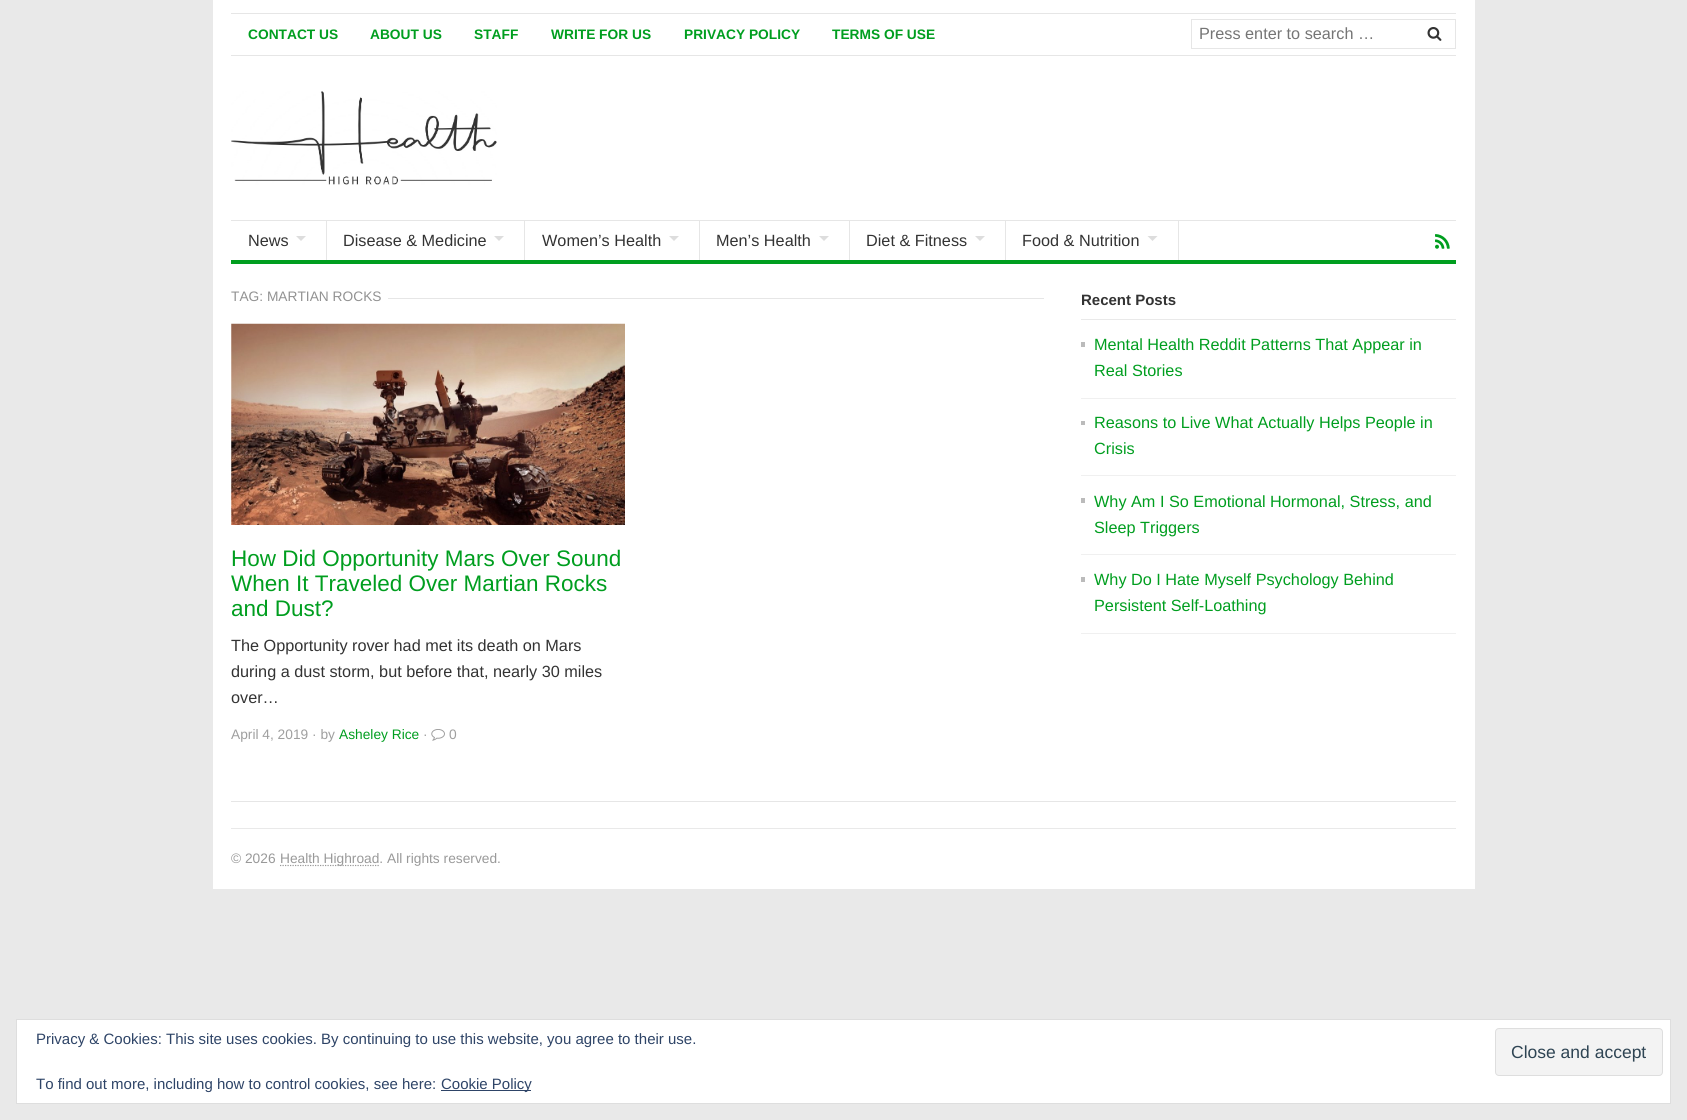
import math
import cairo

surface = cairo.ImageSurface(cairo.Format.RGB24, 1687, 1120)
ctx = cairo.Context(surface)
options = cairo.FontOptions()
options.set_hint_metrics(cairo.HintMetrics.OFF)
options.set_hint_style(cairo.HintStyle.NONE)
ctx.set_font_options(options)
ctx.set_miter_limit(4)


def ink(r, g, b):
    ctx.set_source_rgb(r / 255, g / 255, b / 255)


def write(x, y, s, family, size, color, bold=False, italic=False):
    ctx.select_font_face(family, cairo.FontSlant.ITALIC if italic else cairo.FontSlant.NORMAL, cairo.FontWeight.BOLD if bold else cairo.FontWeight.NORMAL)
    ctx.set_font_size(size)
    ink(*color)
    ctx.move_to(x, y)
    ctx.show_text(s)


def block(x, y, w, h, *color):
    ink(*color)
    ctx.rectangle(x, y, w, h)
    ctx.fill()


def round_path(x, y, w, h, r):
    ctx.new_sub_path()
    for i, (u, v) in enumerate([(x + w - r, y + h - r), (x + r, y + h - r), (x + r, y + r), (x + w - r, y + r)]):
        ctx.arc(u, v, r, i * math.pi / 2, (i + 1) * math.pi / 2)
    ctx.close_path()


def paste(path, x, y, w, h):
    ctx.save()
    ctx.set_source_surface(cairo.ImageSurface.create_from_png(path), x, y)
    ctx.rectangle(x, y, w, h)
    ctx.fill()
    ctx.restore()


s1 = dict(family="Liberation Sans", size=13.75, color=(0, 158, 31), bold=True)
s2 = dict(family="Liberation Sans", size=16.25, color=(117, 117, 117))
s3 = dict(family="Liberation Sans", size=16.25, color=(51, 51, 51))
s4 = dict(family="Liberation Sans", size=13.75, color=(146, 146, 146))
s5 = dict(family="Liberation Sans", size=22.5, color=(0, 158, 31))
s6 = dict(family="Liberation Sans", size=13.75, color=(159, 159, 159))
s7 = dict(family="Liberation Sans", size=13.75, color=(0, 158, 31))
s8 = dict(family="Liberation Sans", size=15, color=(51, 51, 51), bold=True)
s9 = dict(family="Liberation Sans", size=16.25, color=(0, 158, 31))
s10 = dict(family="Liberation Sans", size=13.75, color=(153, 153, 153))
s11 = dict(family="Liberation Sans", size=15, color=(46, 68, 103))
s12 = dict(family="Liberation Sans", size=17.5, color=(46, 68, 83))

ink(233, 233, 233)
ctx.paint()
block(213, 0, 1262, 889, 255, 255, 255)
block(231, 13, 1225, 1, 230, 230, 230)
block(231, 55, 1225, 1, 230, 230, 230)
write(248, 39, "CONTACT US", **s1)
write(370, 39, "ABOUT US", **s1)
write(474, 39, "STAFF", **s1)
write(551, 39, "WRITE FOR US", **s1)
write(684, 39, "PRIVACY POLICY", **s1)
write(832, 39, "TERMS OF USE", **s1)
ctx.rectangle(1191.5, 19.5, 264, 29)
ink(230, 230, 230)
ctx.set_line_width(1)
ctx.stroke()
write(1199, 39, "Press enter to search …", **s2)
paste("pic1.png", 1427, 27, 15, 14)
paste("pic2.png", 231, 91, 266, 94)
block(231, 220, 1225, 1, 230, 230, 230)
block(231, 260, 1225, 4, 0, 158, 31)
block(326, 221, 1, 39, 230, 230, 230)
write(248, 246, "News", **s3)
ink(221, 221, 221)
ctx.new_path()
ctx.move_to(296, 236)
ctx.line_to(306, 236)
ctx.line_to(301, 241)
ctx.close_path()
ctx.fill()
block(524, 221, 1, 39, 230, 230, 230)
write(343, 246, "Disease & Medicine", **s3)
ink(221, 221, 221)
ctx.new_path()
ctx.move_to(494, 236)
ctx.line_to(504, 236)
ctx.line_to(499, 241)
ctx.close_path()
ctx.fill()
block(699, 221, 1, 39, 230, 230, 230)
write(542, 246, "Women’s Health", **s3)
ink(221, 221, 221)
ctx.new_path()
ctx.move_to(669, 236)
ctx.line_to(679, 236)
ctx.line_to(674, 241)
ctx.close_path()
ctx.fill()
block(849, 221, 1, 39, 230, 230, 230)
write(716, 246, "Men’s Health", **s3)
ink(221, 221, 221)
ctx.new_path()
ctx.move_to(819, 236)
ctx.line_to(829, 236)
ctx.line_to(824, 241)
ctx.close_path()
ctx.fill()
block(1005, 221, 1, 39, 230, 230, 230)
write(866, 246, "Diet & Fitness", **s3)
ink(221, 221, 221)
ctx.new_path()
ctx.move_to(975, 236)
ctx.line_to(985, 236)
ctx.line_to(980, 241)
ctx.close_path()
ctx.fill()
block(1178, 221, 1, 39, 230, 230, 230)
write(1022, 246, "Food & Nutrition", **s3)
ink(221, 221, 221)
ctx.new_path()
ctx.move_to(1147.5, 236)
ctx.line_to(1157.5, 236)
ctx.line_to(1152.5, 241)
ctx.close_path()
ctx.fill()
paste("pic3.png", 1435, 234, 15, 15)
block(388, 298, 656, 1, 230, 230, 230)
write(231, 301, "TAG: MARTIAN ROCKS", **s4)
paste("pic4.png", 231, 323, 394, 202)
write(231, 566, "How Did Opportunity Mars Over Sound", **s5)
write(231, 591, "When It Traveled Over Martian Rocks", **s5)
write(231, 616, "and Dust?", **s5)
write(231, 651, "The Opportunity rover had met its death on Mars", **s3)
write(231, 677, "during a dust storm, but before that, nearly 30 miles", **s3)
write(231, 703, "over…", **s3)
write(231, 739, "April 4, 2019 · by", **s6)
write(339, 739, "Asheley Rice", **s7)
write(423, 739, "·", **s6)
paste("pic5.png", 431, 729, 14, 12)
write(449, 739, "0", **s6)
block(1081, 319, 375, 1, 233, 233, 233)
write(1081, 305, "Recent Posts", **s8)
block(1081, 342, 4, 5, 187, 187, 187)
block(1081, 398, 375, 1, 240, 240, 240)
write(1094, 350, "Mental Health Reddit Patterns That Appear in", **s9)
write(1094, 376, "Real Stories", **s9)
block(1081, 421, 4, 4, 187, 187, 187)
block(1081, 475, 375, 1, 240, 240, 240)
write(1094, 428, "Reasons to Live What Actually Helps People in", **s9)
write(1094, 454, "Crisis", **s9)
block(1081, 498, 4, 5, 187, 187, 187)
block(1081, 554, 375, 1, 240, 240, 240)
write(1094, 507, "Why Am I So Emotional Hormonal, Stress, and", **s9)
write(1094, 533, "Sleep Triggers", **s9)
block(1081, 577, 4, 5, 187, 187, 187)
block(1081, 633, 375, 1, 240, 240, 240)
write(1094, 585, "Why Do I Hate Myself Psychology Behind", **s9)
write(1094, 611, "Persistent Self-Loathing", **s9)
block(231, 801, 1225, 1, 230, 230, 230)
block(231, 828, 1225, 1, 233, 233, 233)
write(231, 863, "© 2026", **s10)
ctx.new_path()
ctx.move_to(280, 865.5)
ctx.line_to(379, 865.5)
ctx.set_line_width(1.2)
ctx.set_dash([1.25, 1.25])
ctx.stroke()
write(280, 863, "Health Highroad. All rights reserved.", **s10)
ink(255, 255, 255)
ctx.rectangle(16.5, 1019.5, 1654, 84)
ctx.fill_preserve()
ink(222, 222, 222)
ctx.set_line_width(1)
ctx.set_dash([])
ctx.stroke()
write(36, 1044, "Privacy & Cookies: This site uses cookies. By continuing to use this website, you agree to their use.", **s11)
ink(243, 243, 243)
round_path(1495.5, 1028.5, 167, 47, 3.5)
ctx.fill_preserve()
ink(222, 222, 222)
ctx.stroke()
write(1511, 1058, "Close and accept", **s12)
write(36, 1089, "To find out more, including how to control cookies, see here:", **s11)
block(441, 1090, 90, 1, 46, 68, 103)
write(441, 1089, "Cookie Policy", **s11)
surface.write_to_png("screenshot.png")
